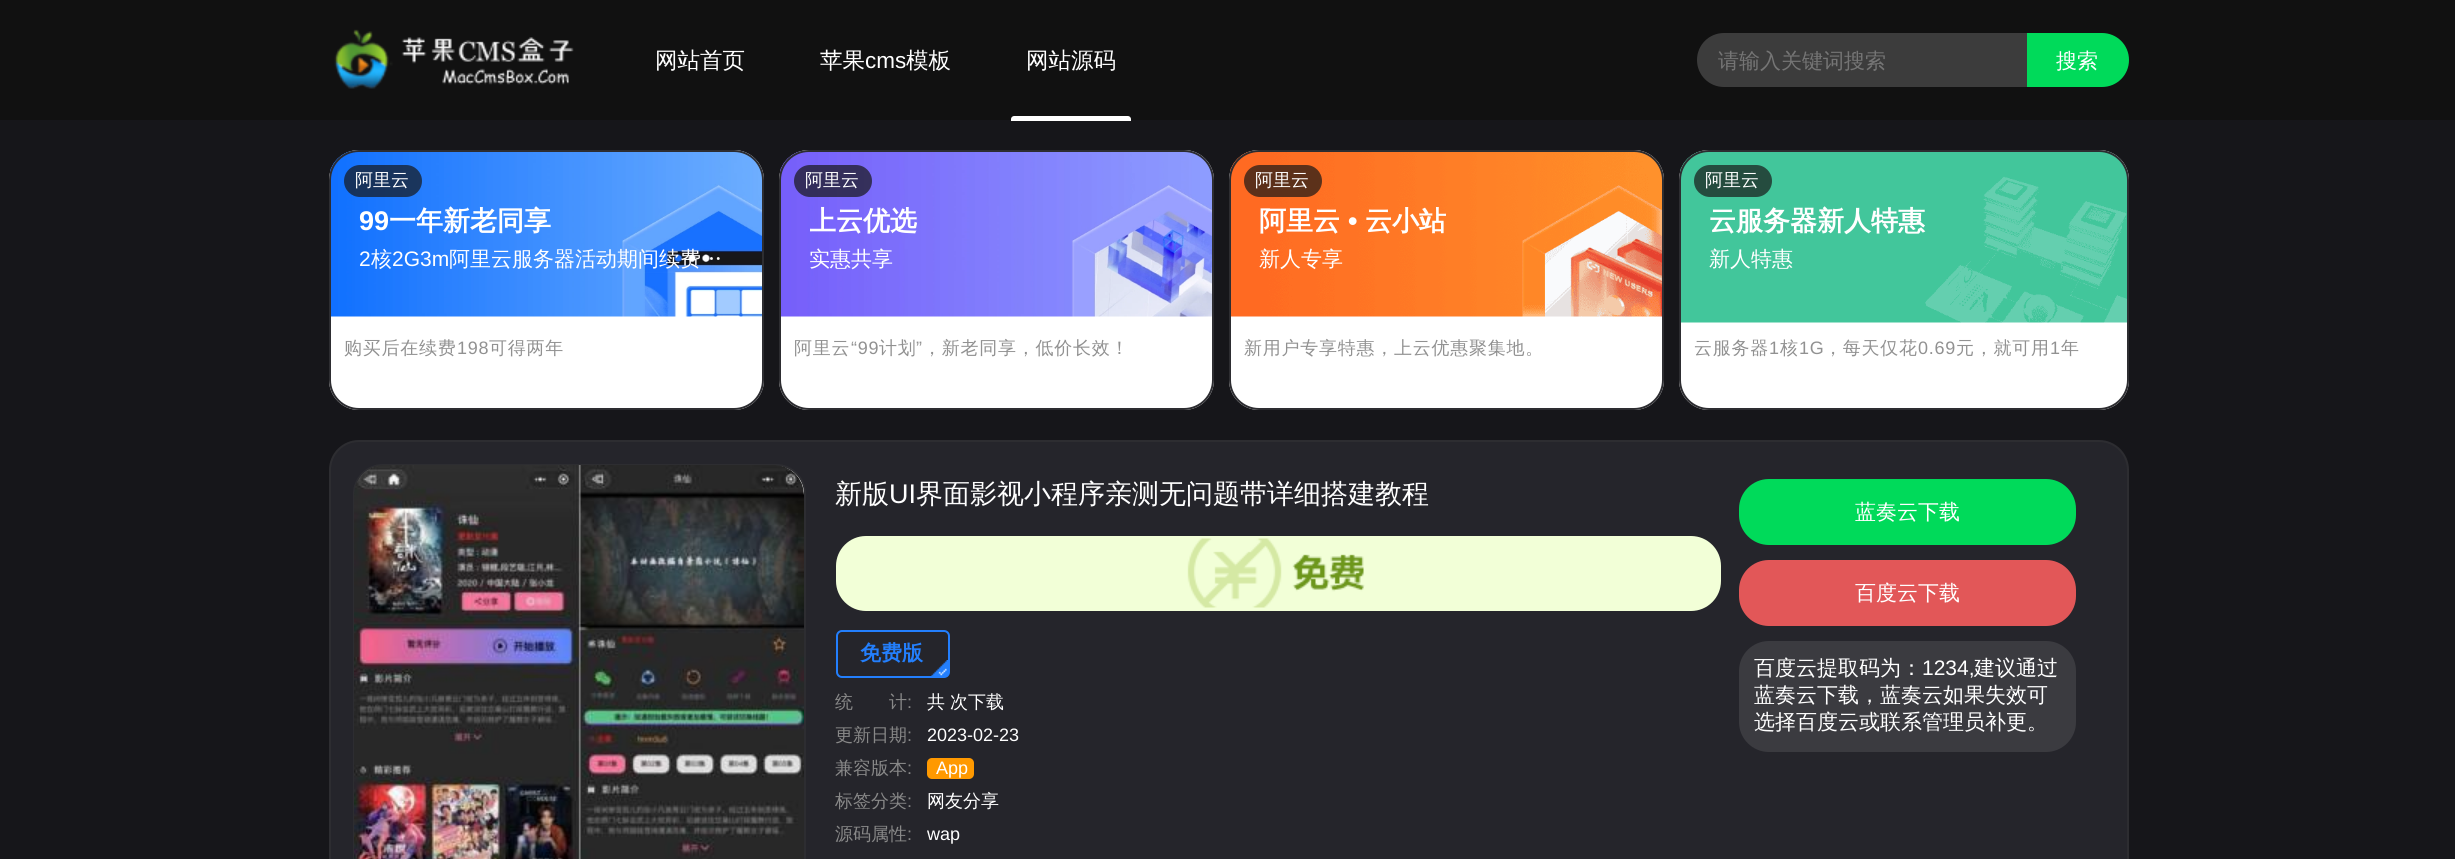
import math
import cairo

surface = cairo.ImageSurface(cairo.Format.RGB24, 2455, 859)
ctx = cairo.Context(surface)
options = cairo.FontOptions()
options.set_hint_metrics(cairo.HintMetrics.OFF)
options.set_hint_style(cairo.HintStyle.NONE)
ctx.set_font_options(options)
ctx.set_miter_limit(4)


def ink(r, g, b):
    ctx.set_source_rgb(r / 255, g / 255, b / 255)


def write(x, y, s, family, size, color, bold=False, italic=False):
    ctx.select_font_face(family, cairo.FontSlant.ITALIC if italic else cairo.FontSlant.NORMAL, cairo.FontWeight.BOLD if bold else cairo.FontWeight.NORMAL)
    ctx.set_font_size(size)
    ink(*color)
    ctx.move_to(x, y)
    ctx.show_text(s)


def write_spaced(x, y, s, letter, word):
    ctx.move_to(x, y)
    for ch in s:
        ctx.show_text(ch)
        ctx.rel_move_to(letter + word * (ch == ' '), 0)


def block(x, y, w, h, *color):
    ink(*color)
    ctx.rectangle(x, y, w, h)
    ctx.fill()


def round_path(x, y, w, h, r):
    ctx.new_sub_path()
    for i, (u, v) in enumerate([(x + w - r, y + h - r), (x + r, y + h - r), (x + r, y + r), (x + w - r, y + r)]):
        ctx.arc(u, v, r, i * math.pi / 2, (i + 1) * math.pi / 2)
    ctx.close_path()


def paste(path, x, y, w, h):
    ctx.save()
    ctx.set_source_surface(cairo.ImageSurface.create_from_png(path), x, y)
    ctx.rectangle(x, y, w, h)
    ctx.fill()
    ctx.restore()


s1 = dict(family="WenQuanYi Zen Hei Medium", size=22.5, color=(255, 255, 255))
s2 = dict(family="Liberation Sans", size=22.5, color=(255, 255, 255))
s3 = dict(family="WenQuanYi Zen Hei Medium", size=21, color=(117, 117, 117))
s4 = dict(family="WenQuanYi Zen Hei Medium", size=21, color=(255, 255, 255))
s5 = dict(family="WenQuanYi Zen Hei Medium", size=18, color=(255, 255, 255))
s6 = dict(family="Liberation Sans", size=27, color=(255, 255, 255), bold=True)
s7 = dict(family="WenQuanYi Zen Hei", size=27, color=(255, 255, 255), bold=True)
s8 = dict(family="Liberation Sans", size=21, color=(255, 255, 255))
s9 = dict(family="WenQuanYi Zen Hei Medium", size=27, color=(255, 255, 255))
s10 = dict(family="Liberation Sans", size=27, color=(255, 255, 255))
s11 = dict(family="WenQuanYi Zen Hei", size=21, color=(35, 127, 253), bold=True)
s12 = dict(family="WenQuanYi Zen Hei Medium", size=18, color=(136, 136, 136))
s13 = dict(family="Liberation Sans", size=18, color=(136, 136, 136))
s14 = dict(family="Liberation Sans", size=18, color=(255, 255, 255))

ink(22, 22, 26)
ctx.paint()
block(0, 0, 2455, 120, 17, 17, 17)
paste("pic1.png", 334, 29, 240, 60)
write(655, 68, "网站首页", **s1)
write(820, 68, "苹果", **s1)
write(865, 68, "cms", **s2)
write(906, 68, "模板", **s1)
write(1026, 68, "网站源码", **s1)
ctx.new_path()
ctx.move_to(1014, 116)
ctx.line_to(1128, 116)
ctx.curve_to(1129.5, 116, 1131, 117.5, 1131, 119)
ctx.line_to(1131, 121)
ctx.line_to(1011, 121)
ctx.line_to(1011, 119)
ctx.curve_to(1011, 117.5, 1012.5, 116, 1014, 116)
ctx.close_path()
ctx.fill()
ink(60, 60, 60)
ctx.new_path()
ctx.move_to(1724, 33)
ctx.line_to(2027, 33)
ctx.line_to(2027, 87)
ctx.line_to(1724, 87)
ctx.curve_to(1709, 87, 1697, 75, 1697, 60)
ctx.curve_to(1697, 45, 1709, 33, 1724, 33)
ctx.close_path()
ctx.fill()
write(1718, 68, "请输入关键词搜索", **s3)
ink(0, 218, 90)
ctx.new_path()
ctx.move_to(2027, 33)
ctx.line_to(2102, 33)
ctx.curve_to(2117, 33, 2129, 45, 2129, 60)
ctx.curve_to(2129, 75, 2117, 87, 2102, 87)
ctx.line_to(2027, 87)
ctx.close_path()
ctx.fill()
write(2056, 68, "搜索", **s4)
round_path(329, 150, 435, 260, 30)
ctx.fill()
paste("pic2.png", 330, 151, 432, 166)
round_path(330, 151, 433, 258, 29)
ink(45, 45, 49)
ctx.stroke()
ctx.set_source_rgba(0.094, 0.094, 0.094, 0.7)
round_path(344, 165, 78, 32, 16)
ctx.fill()
write(355, 186, "阿里云", **s5)
write(359, 230, "99", **s6)
write(389, 230, "一年新老同享", **s7)
write(359, 266, "2", **s8)
write(371, 266, "核", **s4)
write(392, 266, "2G3m", **s8)
write(449, 266, "阿里云服务器活动期间续费…", **s4)
ctx.set_font_size(18)
ink(145, 145, 145)
write_spaced(344, 354, "购买后在续费", 0.75, 0)
ctx.select_font_face("Liberation Sans")
write_spaced(457, 354, "198", 0.75, 0)
ctx.select_font_face("WenQuanYi Zen Hei Medium")
write_spaced(489, 354, "可得两年", 0.75, 0)
ink(255, 255, 255)
round_path(779, 150, 435, 260, 30)
ctx.fill()
paste("pic3.png", 780, 151, 432, 166)
round_path(780, 151, 433, 258, 29)
ink(45, 45, 49)
ctx.stroke()
ctx.set_source_rgba(0.094, 0.094, 0.094, 0.7)
round_path(794, 165, 78, 32, 16)
ctx.fill()
write(805, 186, "阿里云", **s5)
ctx.save()
ctx.rectangle(810, 197, 372, 49)
ctx.clip()
write(809, 230, "上云优选", **s7)
ctx.restore()
write(809, 266, "实惠共享", **s4)
ctx.set_font_size(18)
ink(145, 145, 145)
write_spaced(794, 354, "阿里云", 0.75, 0)
ctx.select_font_face("Liberation Sans")
write_spaced(851, 354, "“99", 0.75, 0)
ctx.select_font_face("WenQuanYi Zen Hei Medium")
write_spaced(879, 354, "计划", 0.75, 0)
ctx.select_font_face("Liberation Sans")
write_spaced(916, 354, "”", 0.75, 0)
ctx.select_font_face("WenQuanYi Zen Hei Medium")
write_spaced(923, 354, "，新老同享，低价长效！", 0.75, 0)
ink(255, 255, 255)
round_path(1229, 150, 435, 260, 30)
ctx.fill()
paste("pic4.png", 1230, 151, 432, 166)
round_path(1230, 151, 433, 258, 29)
ink(45, 45, 49)
ctx.stroke()
ctx.set_source_rgba(0.094, 0.094, 0.094, 0.7)
round_path(1244, 165, 78, 32, 16)
ctx.fill()
write(1255, 186, "阿里云", **s5)
write(1259, 230, "阿里云", **s7)
write(1348, 230, "•", **s6)
write(1365, 230, "云小站", **s7)
write(1259, 266, "新人专享", **s4)
ctx.set_font_size(18)
ink(145, 145, 145)
write_spaced(1244, 354, "新用户专享特惠，上云优惠聚集地。", 0.75, 0)
ink(255, 255, 255)
round_path(1679, 150, 450, 260, 30)
ctx.fill()
paste("pic5.png", 1680, 151, 447, 172)
round_path(1680, 151, 448, 258, 29)
ink(45, 45, 49)
ctx.stroke()
ink(37, 76, 63)
round_path(1694, 165, 78, 32, 16)
ctx.fill()
write(1705, 186, "阿里云", **s5)
write(1709, 230, "云服务器新人特惠", **s7)
write(1709, 266, "新人特惠", **s4)
ctx.set_font_size(18)
ink(145, 145, 145)
write_spaced(1694, 354, "云服务器", 0.75, 0)
ctx.select_font_face("Liberation Sans")
write_spaced(1769, 354, "1", 0.75, 0)
ctx.select_font_face("WenQuanYi Zen Hei Medium")
write_spaced(1780, 354, "核", 0.75, 0)
ctx.select_font_face("Liberation Sans")
write_spaced(1799, 354, "1G", 0.75, 0)
ctx.select_font_face("WenQuanYi Zen Hei Medium")
write_spaced(1824, 354, "，每天仅花", 0.75, 0)
ctx.select_font_face("Liberation Sans")
write_spaced(1918, 354, "0.69", 0.75, 0)
ctx.select_font_face("WenQuanYi Zen Hei Medium")
write_spaced(1956, 354, "元，就可用", 0.75, 0)
ctx.select_font_face("Liberation Sans")
write_spaced(2050, 354, "1", 0.75, 0)
ctx.select_font_face("WenQuanYi Zen Hei Medium")
write_spaced(2061, 354, "年", 0.75, 0)
ink(37, 37, 43)
round_path(330, 441, 1798, 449, 29)
ctx.fill_preserve()
ink(45, 45, 49)
ctx.stroke()
ink(244, 244, 244)
round_path(354, 465, 451, 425, 29)
ctx.fill_preserve()
ink(45, 45, 49)
ctx.stroke()
paste("pic6.png", 354, 465, 450, 394)
write(835, 503, "新版", **s9)
write(889, 503, "UI", **s10)
write(916, 503, "界面影视小程序亲测无问题带详细搭建教程", **s9)
ink(242, 255, 215)
round_path(836, 536, 885, 75, 30)
ctx.fill()
paste("pic7.png", 1187, 538, 178, 70)
paste("pic8.png", 931, 660, 17, 17)
round_path(837, 631, 112, 46, 5)
ink(35, 127, 253)
ctx.stroke()
write(860, 660, "免费版", **s11)
write(835, 708, "统　　计", **s12)
write(907, 708, ":", **s13)
write(927, 708, "共", **s5)
write(950, 708, "次下载", **s5)
write(835, 741, "更新日期", **s12)
write(907, 741, ":", **s13)
write(927, 741, "2023-02-23", **s14)
write(835, 774, "兼容版本", **s12)
write(907, 774, ":", **s13)
ink(255, 153, 0)
round_path(927, 758, 47, 21, 5)
ctx.fill()
write(936, 774, "App", **s14)
write(835, 807, "标签分类", **s12)
write(907, 807, ":", **s13)
write(927, 807, "网友分享", **s5)
write(835, 840, "源码属性", **s12)
write(907, 840, ":", **s13)
write(927, 840, "wap", **s14)
ink(0, 218, 90)
round_path(1739, 479, 337, 66, 30)
ctx.fill()
write(1855, 519, "蓝奏云下载", **s4)
ink(226, 87, 88)
round_path(1739, 560, 337, 66, 30)
ctx.fill()
write(1855, 600, "百度云下载", **s4)
ink(59, 59, 64)
round_path(1739, 641, 337, 111, 30)
ctx.fill()
write(1754, 675, "百度云提取码为：", **s4)
write(1922, 675, "1234,", **s8)
write(1974, 675, "建议通过", **s4)
write(1754, 702, "蓝奏云下载，蓝奏云如果失效可", **s4)
write(1754, 729, "选择百度云或联系管理员补更。", **s4)
surface.write_to_png("screenshot.png")
